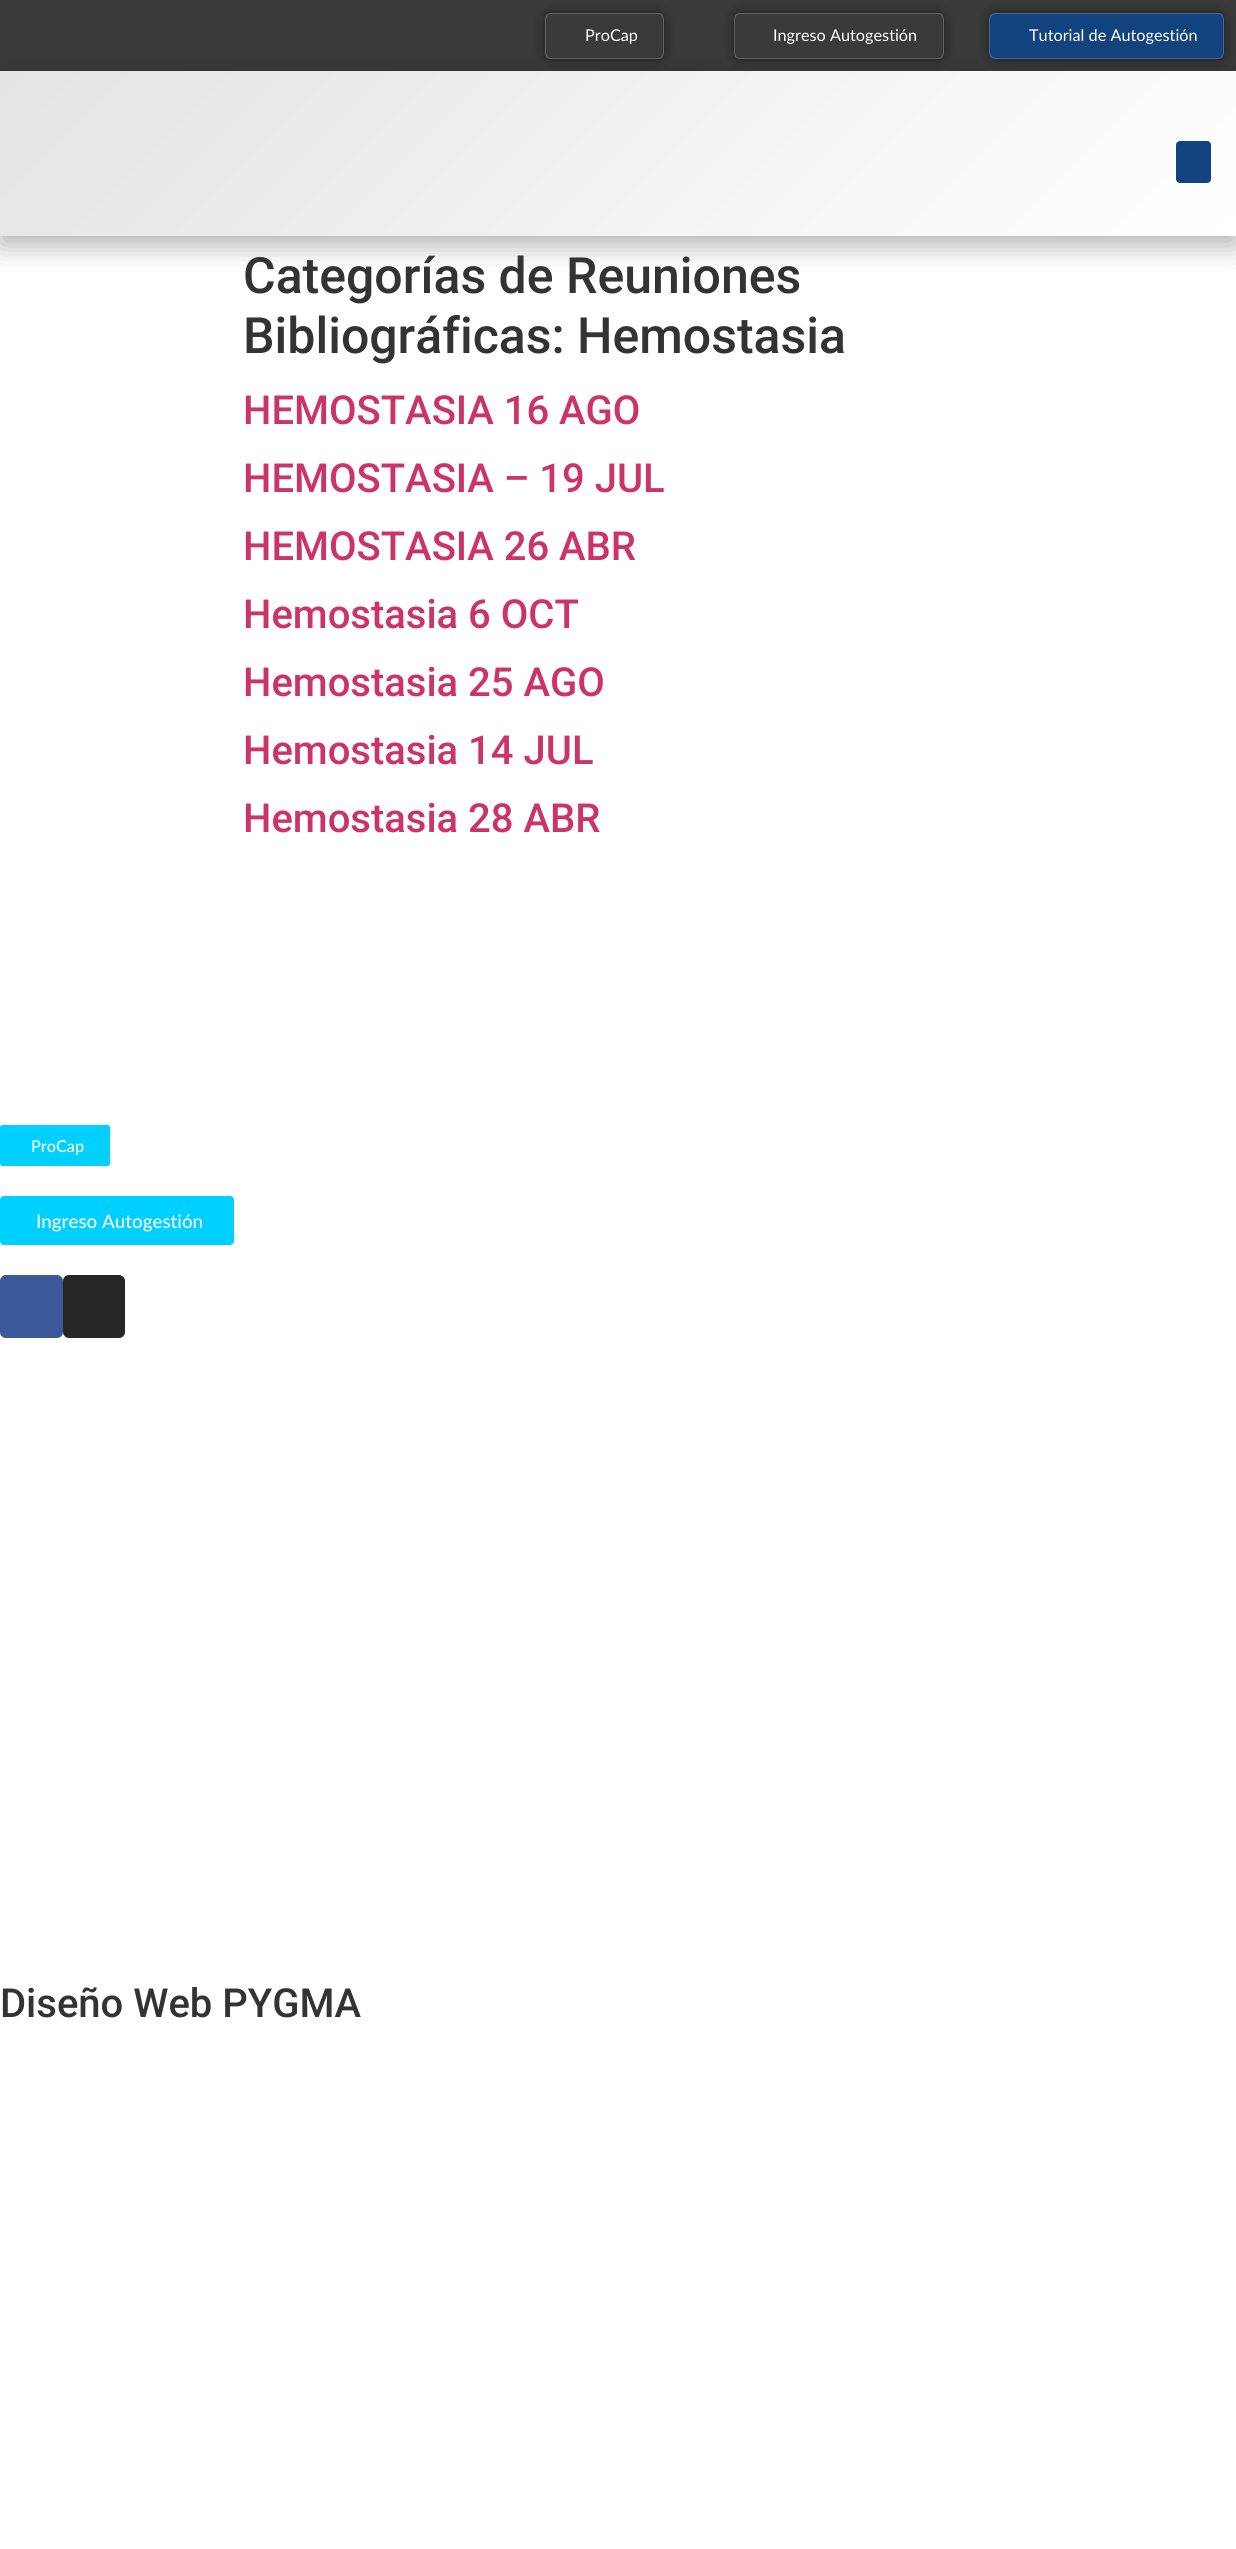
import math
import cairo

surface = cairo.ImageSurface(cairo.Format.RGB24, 1236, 2549)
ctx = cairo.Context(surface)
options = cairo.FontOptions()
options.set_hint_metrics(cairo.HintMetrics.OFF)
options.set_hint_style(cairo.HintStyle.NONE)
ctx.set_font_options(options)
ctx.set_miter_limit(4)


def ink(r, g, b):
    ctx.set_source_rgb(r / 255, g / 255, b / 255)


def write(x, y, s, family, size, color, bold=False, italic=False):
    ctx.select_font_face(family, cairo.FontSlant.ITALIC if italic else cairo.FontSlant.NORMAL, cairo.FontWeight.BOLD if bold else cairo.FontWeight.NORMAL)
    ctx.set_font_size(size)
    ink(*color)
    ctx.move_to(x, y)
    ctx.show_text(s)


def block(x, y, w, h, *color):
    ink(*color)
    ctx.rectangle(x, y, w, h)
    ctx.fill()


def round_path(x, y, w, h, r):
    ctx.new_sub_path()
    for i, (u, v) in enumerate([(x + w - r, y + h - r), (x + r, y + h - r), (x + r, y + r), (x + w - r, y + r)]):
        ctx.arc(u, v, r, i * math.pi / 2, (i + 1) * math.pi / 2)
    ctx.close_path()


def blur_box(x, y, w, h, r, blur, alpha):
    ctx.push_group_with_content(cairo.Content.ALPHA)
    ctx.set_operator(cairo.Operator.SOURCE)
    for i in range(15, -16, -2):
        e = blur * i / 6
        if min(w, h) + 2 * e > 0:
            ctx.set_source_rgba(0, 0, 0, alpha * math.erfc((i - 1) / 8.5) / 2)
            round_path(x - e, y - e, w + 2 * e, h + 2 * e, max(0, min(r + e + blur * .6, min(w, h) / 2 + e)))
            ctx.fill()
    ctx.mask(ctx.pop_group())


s1 = dict(family="Lato", size=16.25, color=(255, 255, 255))
s2 = dict(family="Roboto Medium", size=50, color=(51, 51, 51))
s3 = dict(family="Roboto Medium", size=40, color=(204, 51, 102))
s4 = dict(family="Lato Medium", size=16.25, color=(255, 255, 255))
s5 = dict(family="Lato Medium", size=18.75, color=(255, 255, 255))
s6 = dict(family="Roboto Medium", size=40, color=(51, 51, 51))

ink(255, 255, 255)
ctx.paint()
block(0, 0, 1236, 71, 58, 58, 58)
ctx.save()
ctx.set_fill_rule(cairo.FillRule.EVEN_ODD)
ctx.new_path()
ctx.move_to(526, 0)
ctx.line_to(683, 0)
ctx.line_to(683, 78)
ctx.line_to(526, 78)
ctx.close_path()
ctx.move_to(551, 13)
ctx.line_to(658, 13)
ctx.curve_to(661.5, 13, 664, 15.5, 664, 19)
ctx.line_to(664, 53)
ctx.curve_to(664, 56.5, 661.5, 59, 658, 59)
ctx.line_to(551, 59)
ctx.curve_to(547.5, 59, 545, 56.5, 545, 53)
ctx.line_to(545, 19)
ctx.curve_to(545, 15.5, 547.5, 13, 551, 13)
ctx.close_path()
ctx.clip()
ink(0, 0, 0)
blur_box(545, 13, 119, 46, 6, 6, 0.5)
ctx.restore()
round_path(545.5, 13.5, 118, 45, 5.5)
ctx.set_source_rgba(1, 1, 1, 0.2)
ctx.set_line_width(1)
ctx.stroke()
write(585, 41, "ProCap", **s1)
ctx.save()
ctx.set_fill_rule(cairo.FillRule.EVEN_ODD)
ctx.new_path()
ctx.move_to(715, 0)
ctx.line_to(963, 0)
ctx.line_to(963, 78)
ctx.line_to(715, 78)
ctx.close_path()
ctx.move_to(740, 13)
ctx.line_to(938, 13)
ctx.curve_to(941.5, 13, 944, 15.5, 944, 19)
ctx.line_to(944, 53)
ctx.curve_to(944, 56.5, 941.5, 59, 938, 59)
ctx.line_to(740, 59)
ctx.curve_to(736.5, 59, 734, 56.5, 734, 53)
ctx.line_to(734, 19)
ctx.curve_to(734, 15.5, 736.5, 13, 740, 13)
ctx.close_path()
ctx.clip()
ink(0, 0, 0)
blur_box(734, 13, 210, 46, 6, 6, 0.5)
ctx.restore()
round_path(734.5, 13.5, 209, 45, 5.5)
ctx.set_source_rgba(1, 1, 1, 0.2)
ctx.stroke()
write(773, 41, "Ingreso Autogestión", **s1)
ink(0, 0, 0)
blur_box(989, 13, 235, 46, 6, 6, 0.5)
ink(19, 67, 126)
round_path(989, 13, 235, 46, 6)
ctx.fill()
round_path(989.5, 13.5, 234, 45, 5.5)
ctx.set_source_rgba(1, 1, 1, 0.2)
ctx.stroke()
write(1029, 41, "Tutorial de Autogestión", **s1)
ink(0, 0, 0)
blur_box(0, 80, 1236, 165, 0, 14, 0.31)
gradient = cairo.LinearGradient(268, -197, 968, 504)
gradient.add_color_stop_rgba(0, 0.894, 0.894, 0.894, 1)
gradient.add_color_stop_rgba(1, 1, 1, 1, 1)
ctx.set_source(gradient)
ctx.rectangle(0, 71, 1236, 165)
ctx.fill()
ink(19, 67, 126)
round_path(1176, 141, 35, 42, 4)
ctx.fill()
write(243, 293, "Categorías de Reuniones", **s2)
write(243, 353, "Bibliográficas: Hemostasia", **s2)
write(243, 424, "HEMOSTASIA 16 AGO", **s3)
write(243, 492, "HEMOSTASIA – 19 JUL", **s3)
write(243, 560, "HEMOSTASIA 26 ABR", **s3)
write(243, 628, "Hemostasia 6 OCT", **s3)
write(243, 696, "Hemostasia 25 AGO", **s3)
write(243, 764, "Hemostasia 14 JUL", **s3)
write(243, 832, "Hemostasia 28 ABR", **s3)
ink(0, 208, 255)
round_path(0, 1125, 110, 41, 2.5)
ctx.fill()
write(31, 1152, "ProCap", **s4)
ink(0, 208, 255)
round_path(0, 1196, 234, 49, 4)
ctx.fill()
write(36, 1228, "Ingreso Autogestión", **s5)
ink(59, 89, 152)
round_path(0, 1275, 63, 63, 6)
ctx.fill()
ink(38, 38, 38)
round_path(63, 1275, 62, 63, 6)
ctx.fill()
write(0, 2017, "Diseño Web PYGMA", **s6)
surface.write_to_png("screenshot.png")
